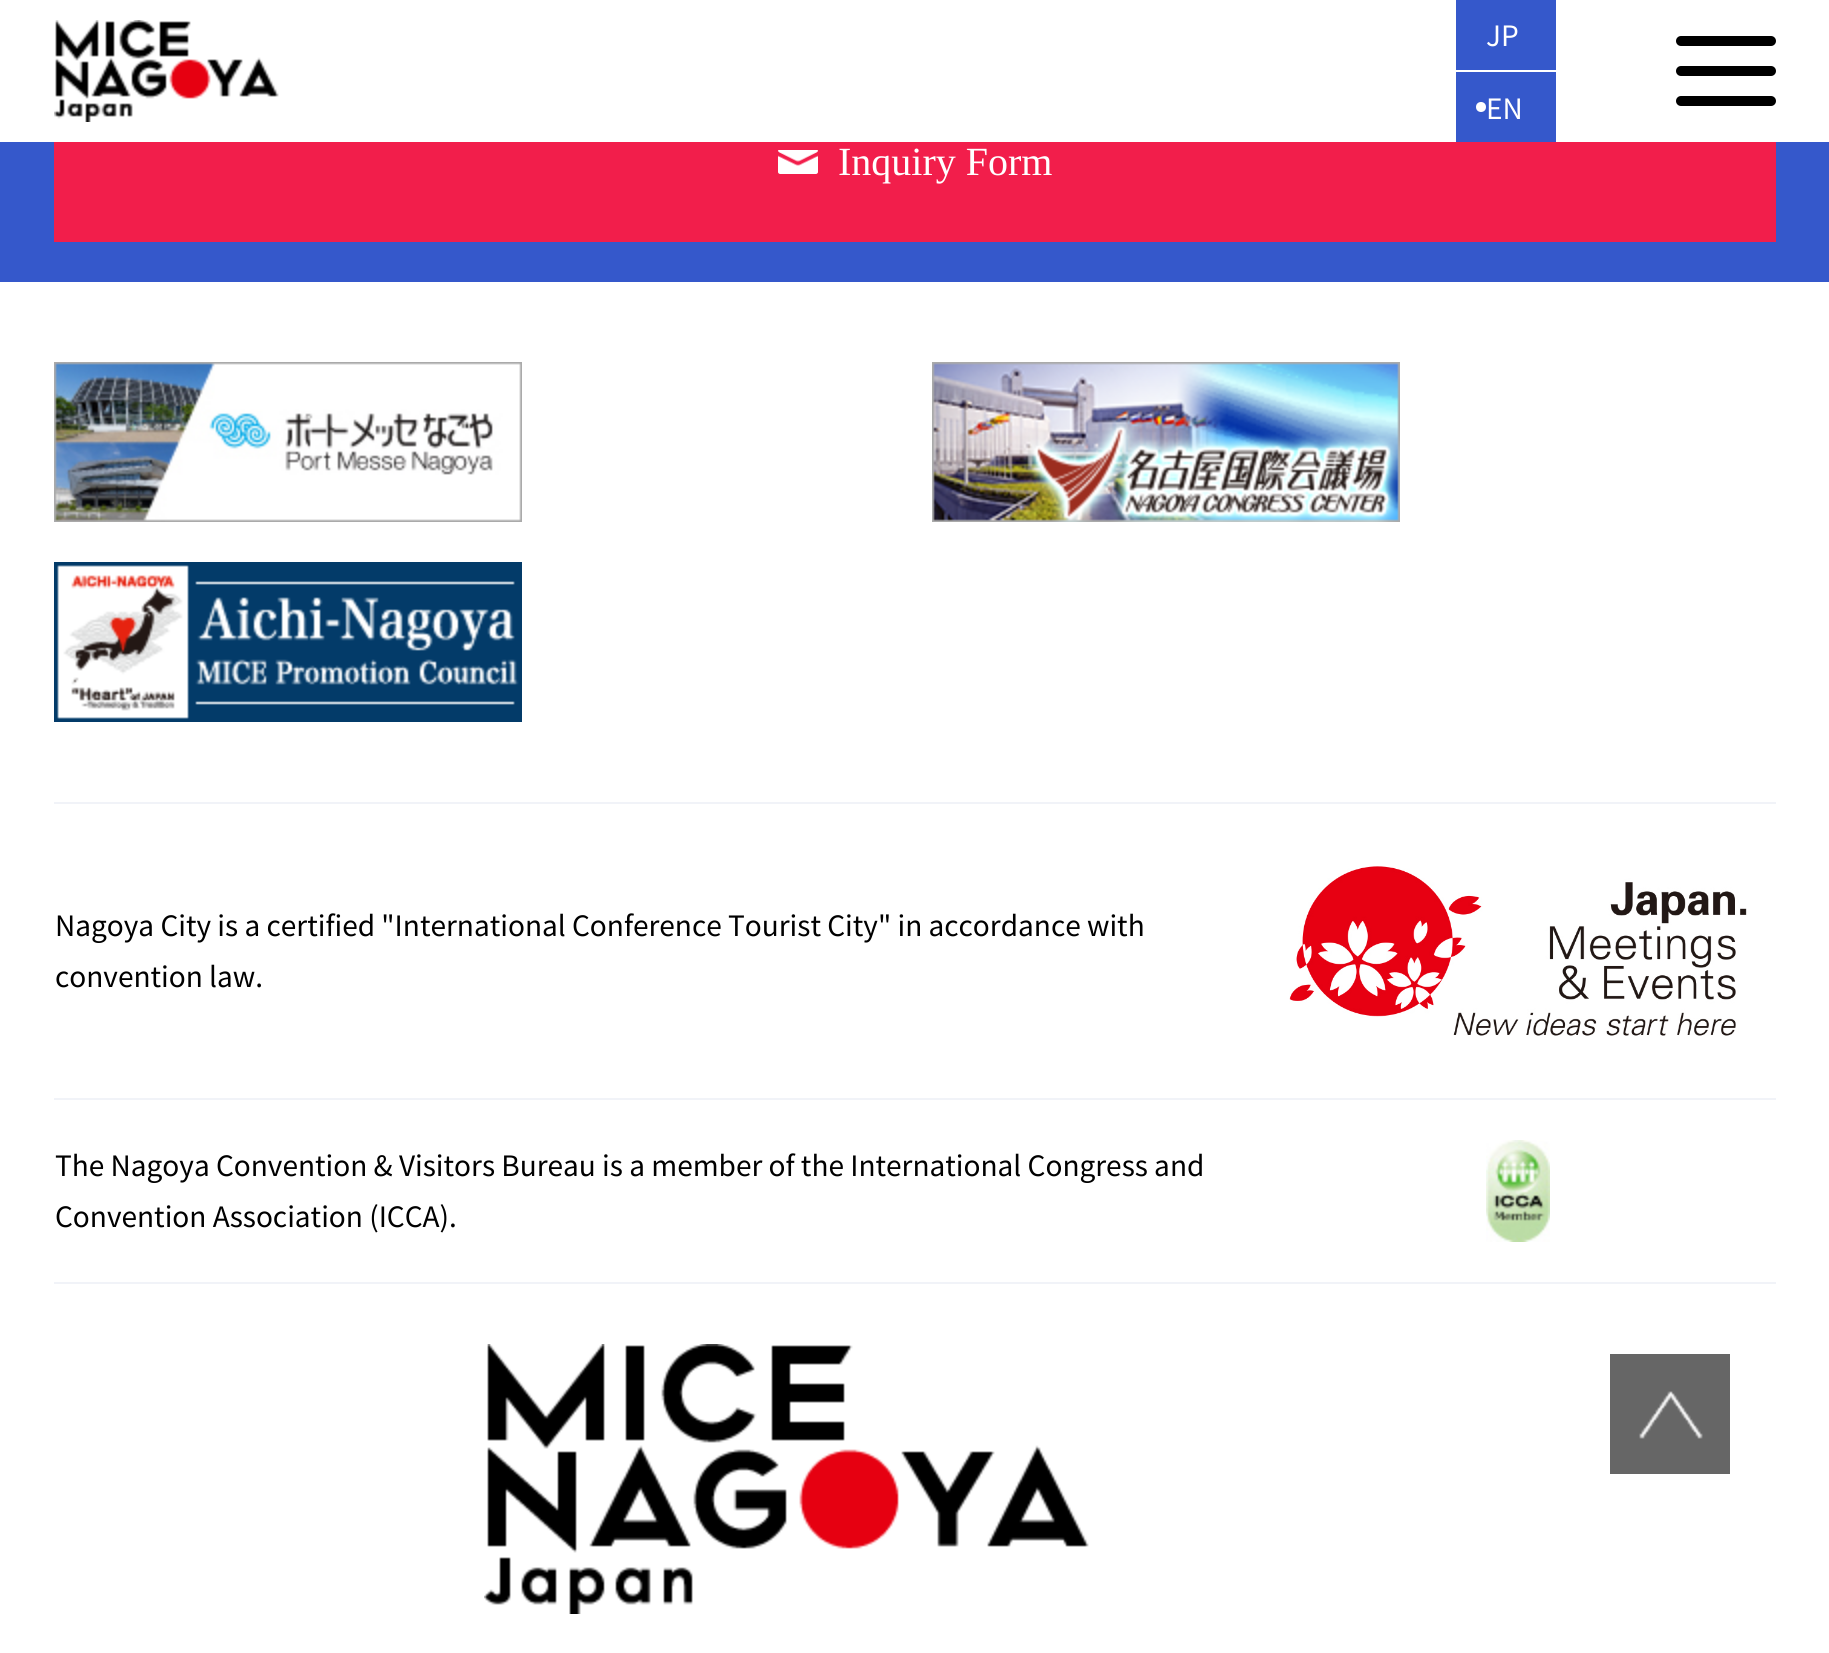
import math
import cairo

surface = cairo.ImageSurface(cairo.Format.RGB24, 1829, 1653)
ctx = cairo.Context(surface)
options = cairo.FontOptions()
options.set_hint_metrics(cairo.HintMetrics.OFF)
options.set_hint_style(cairo.HintStyle.NONE)
ctx.set_font_options(options)
ctx.set_miter_limit(4)


def ink(r, g, b):
    ctx.set_source_rgb(r / 255, g / 255, b / 255)


def write(x, y, s, family, size, color, bold=False, italic=False):
    ctx.select_font_face(family, cairo.FontSlant.ITALIC if italic else cairo.FontSlant.NORMAL, cairo.FontWeight.BOLD if bold else cairo.FontWeight.NORMAL)
    ctx.set_font_size(size)
    ink(*color)
    ctx.move_to(x, y)
    ctx.show_text(s)


def block(x, y, w, h, *color):
    ink(*color)
    ctx.rectangle(x, y, w, h)
    ctx.fill()


def round_path(x, y, w, h, r):
    ctx.new_sub_path()
    for i, (u, v) in enumerate([(x + w - r, y + h - r), (x + r, y + h - r), (x + r, y + r), (x + w - r, y + r)]):
        ctx.arc(u, v, r, i * math.pi / 2, (i + 1) * math.pi / 2)
    ctx.close_path()


def paste(path, x, y, w, h):
    ctx.save()
    ctx.set_source_surface(cairo.ImageSurface.create_from_png(path), x, y)
    ctx.rectangle(x, y, w, h)
    ctx.fill()
    ctx.restore()


s1 = dict(family="Noto Sans JP Thin", size=28, color=(255, 255, 255))
s2 = dict(family="Liberation Serif", size=40, color=(255, 255, 255))
s3 = dict(family="Noto Sans JP Thin", size=28, color=(0, 0, 0))

ink(255, 255, 255)
ctx.paint()
paste("pic1.png", 54, 20, 225, 102)
block(1456, 0, 100, 142, 53, 88, 203)
write(1486, 46, "JP", **s1)
block(1456, 70, 100, 2, 255, 255, 255)
ctx.new_path()
ctx.arc(1481, 107, 5, 0, 2 * math.pi)
ctx.fill()
write(1486, 119, "EN", **s1)
ink(0, 0, 0)
round_path(1676, 66, 100, 10, 5)
ctx.fill()
round_path(1676, 36, 100, 10, 5)
ctx.fill()
round_path(1676, 96, 100, 10, 5)
ctx.fill()
block(0, 142, 1829, 140, 53, 88, 203)
block(54, 142, 1722, 100, 242, 30, 75)
paste("pic2.png", 778, 150, 40, 24)
write(838, 175, "Inquiry Form", **s2)
paste("pic3.png", 54, 362, 468, 160)
paste("pic4.png", 932, 362, 468, 160)
paste("pic5.png", 54, 562, 468, 160)
block(54, 802, 1722, 2, 241, 243, 248)
block(54, 1098, 1722, 2, 241, 243, 248)
write(55, 936, "Nagoya City is a certified \"International Conference Tourist City\" in accordance with", **s3)
write(55, 987, "convention law.", **s3)
paste("pic6.png", 1289, 866, 458, 170)
block(54, 1282, 1722, 2, 241, 243, 248)
write(55, 1176, "The Nagoya Convention & Visitors Bureau is a member of the International Congress and", **s3)
write(55, 1227, "Convention Association (ICCA).", **s3)
paste("pic7.png", 1486, 1140, 64, 102)
paste("pic8.png", 484, 1344, 605, 270)
paste("pic9.png", 1610, 1354, 120, 120)
surface.write_to_png("screenshot.png")
